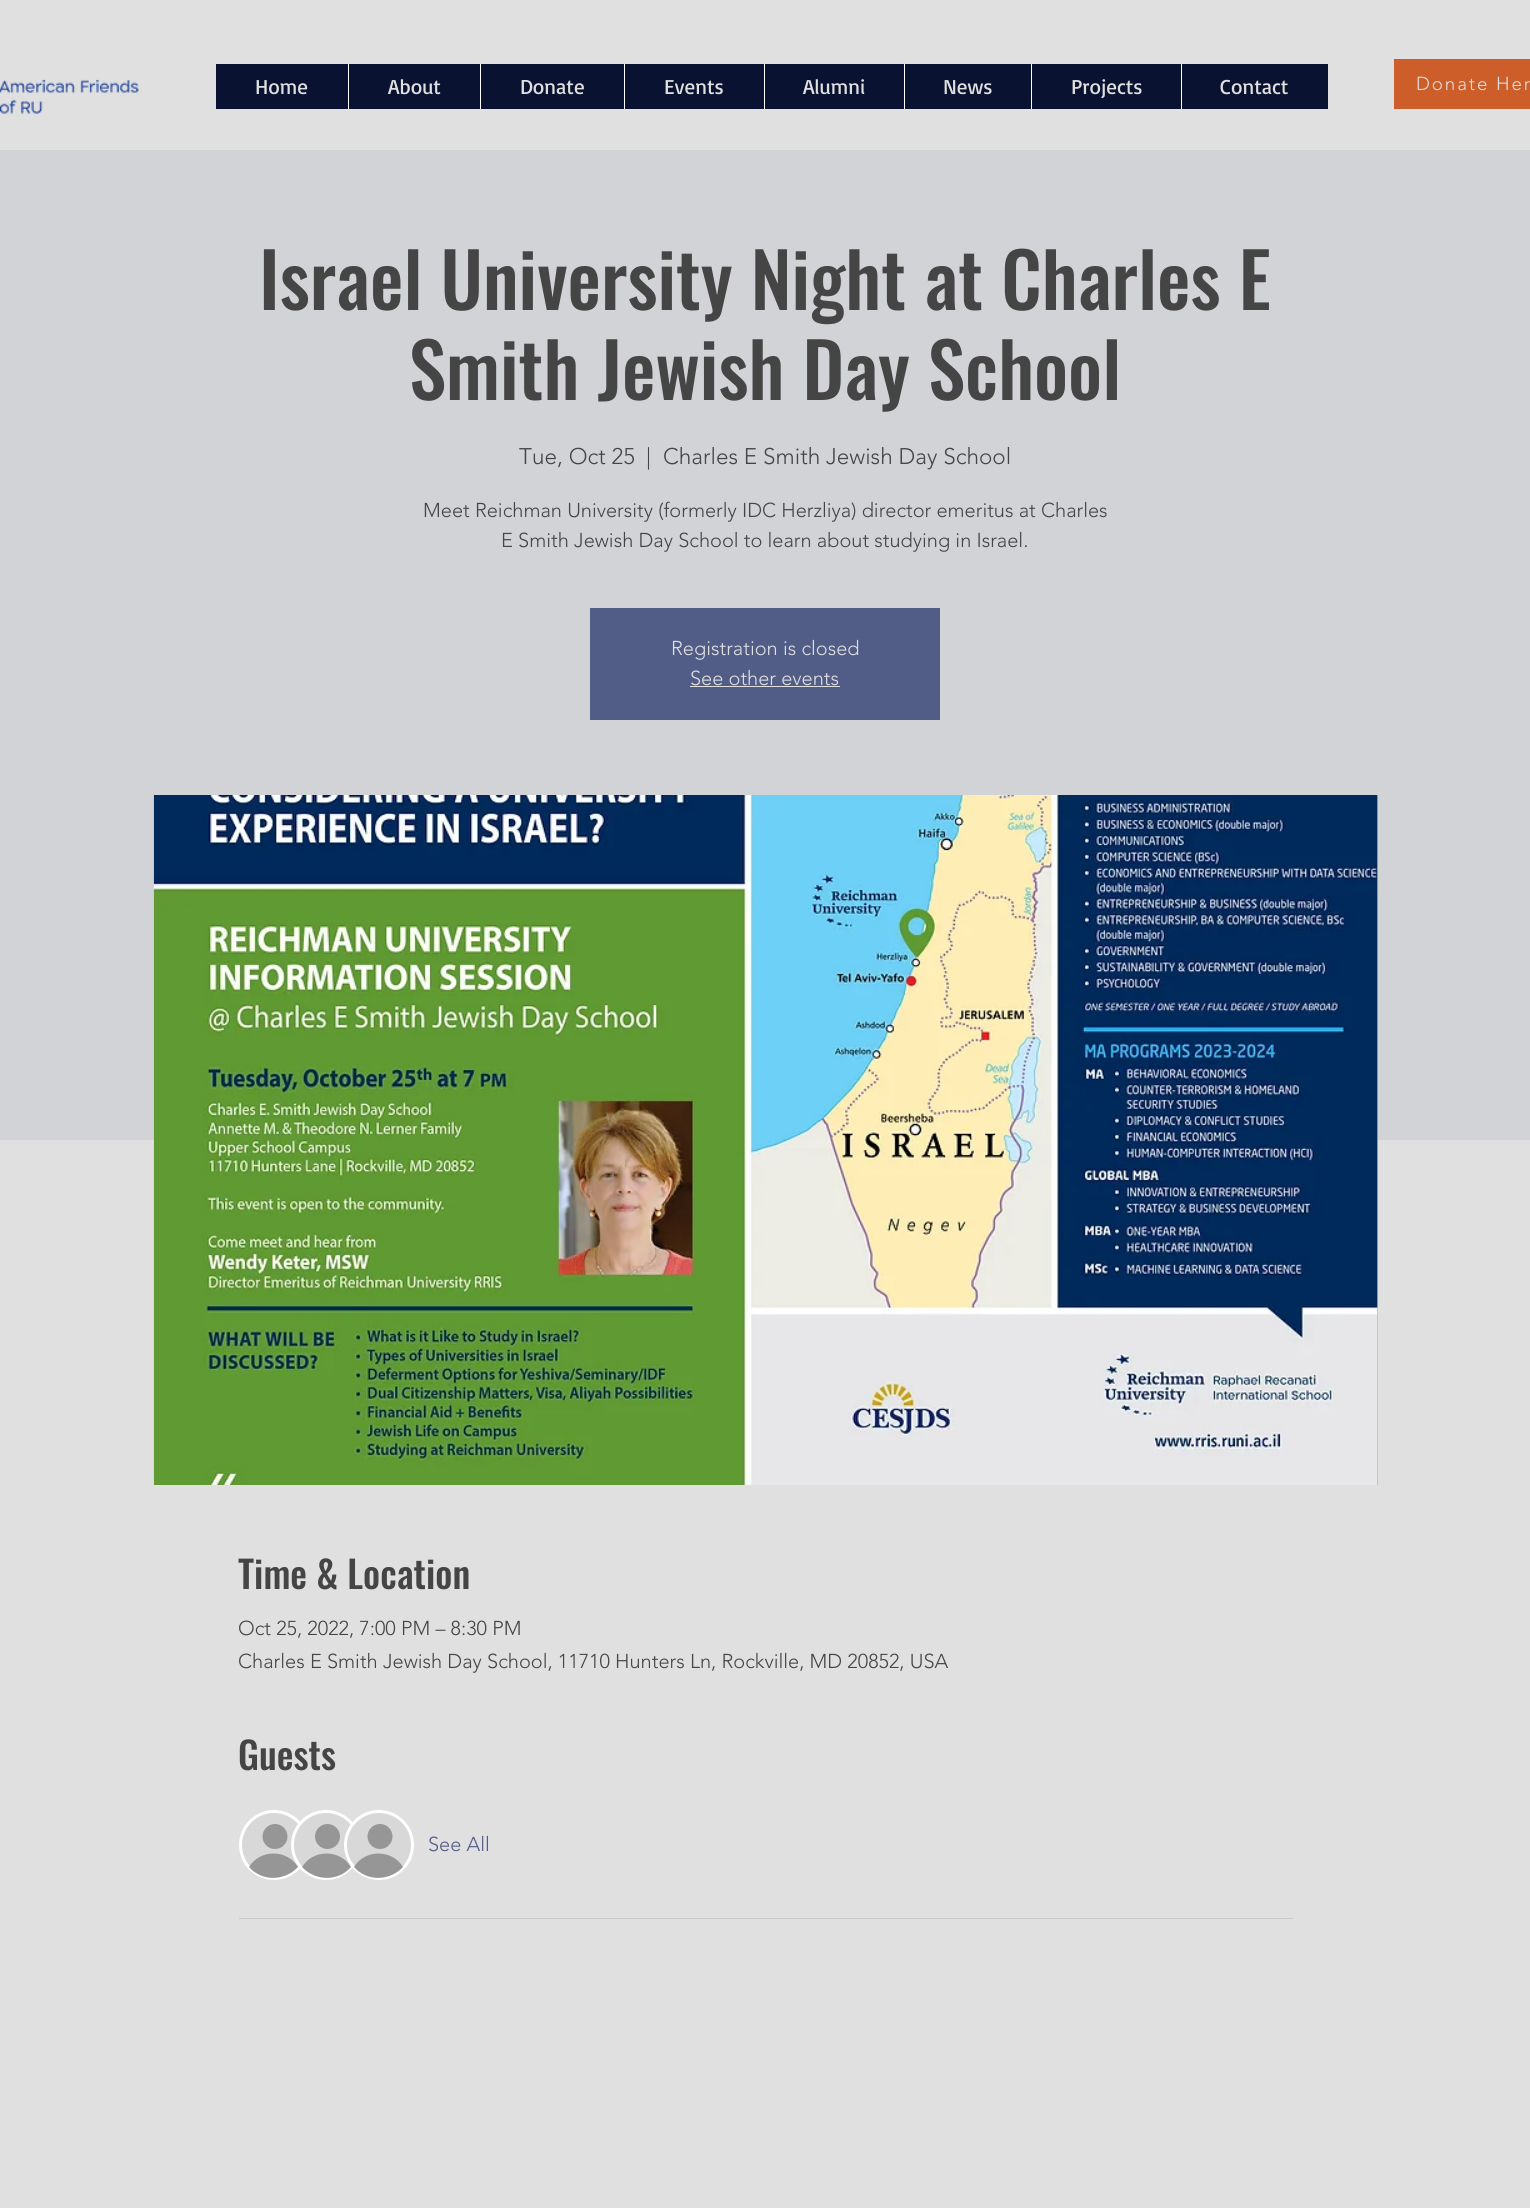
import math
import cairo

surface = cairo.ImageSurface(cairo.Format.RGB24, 1530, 2208)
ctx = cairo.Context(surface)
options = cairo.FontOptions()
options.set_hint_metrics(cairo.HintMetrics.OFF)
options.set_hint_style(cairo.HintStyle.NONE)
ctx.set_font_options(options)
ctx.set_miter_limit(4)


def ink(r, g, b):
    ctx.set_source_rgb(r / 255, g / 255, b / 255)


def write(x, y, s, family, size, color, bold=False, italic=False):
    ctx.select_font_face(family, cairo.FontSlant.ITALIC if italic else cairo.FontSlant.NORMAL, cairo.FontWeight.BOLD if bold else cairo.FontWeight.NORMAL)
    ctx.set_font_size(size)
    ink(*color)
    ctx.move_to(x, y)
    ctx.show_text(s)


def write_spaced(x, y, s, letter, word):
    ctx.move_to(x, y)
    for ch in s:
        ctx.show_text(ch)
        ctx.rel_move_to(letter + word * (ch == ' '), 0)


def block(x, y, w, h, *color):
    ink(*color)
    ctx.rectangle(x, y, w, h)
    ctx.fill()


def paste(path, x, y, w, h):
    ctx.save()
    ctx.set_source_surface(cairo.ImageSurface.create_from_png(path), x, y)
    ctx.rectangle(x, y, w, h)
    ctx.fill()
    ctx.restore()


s1 = dict(family="Basic", size=21, color=(224, 224, 224))
s2 = dict(family="Oswald Medium", size=75, color=(69, 69, 69))
s3 = dict(family="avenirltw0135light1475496 Light", size=22.5, color=(69, 69, 69))
s4 = dict(family="avenirltw0135light1475496 Light", size=20, color=(69, 69, 69))
s5 = dict(family="avenirltw0135light1475496 Light", size=20, color=(224, 224, 224))
s6 = dict(family="Oswald Medium", size=37.5, color=(69, 69, 69))
s7 = dict(family="avenirltw0135light1475496 Light", size=20, color=(81, 93, 135))

ink(224, 224, 224)
ctx.paint()
paste("pic1.png", 0, 79, 139, 35)
block(216, 64, 1112, 45, 9, 18, 48)
write(255, 94, "Home", **s1)
block(348, 64, 1, 45, 255, 255, 255)
write(388, 94, "About", **s1)
block(480, 64, 1, 45, 255, 255, 255)
write(520, 94, "Donate", **s1)
block(624, 64, 1, 45, 255, 255, 255)
write(664, 94, "Events", **s1)
block(764, 64, 1, 45, 255, 255, 255)
write(803, 94, "Alumni", **s1)
block(904, 64, 1, 45, 255, 255, 255)
write(943, 94, "News", **s1)
block(1031, 64, 1, 45, 255, 255, 255)
write(1071, 94, "Projects", **s1)
block(1181, 64, 1, 45, 255, 255, 255)
write(1220, 94, "Contact", **s1)
block(1394, 59, 136, 50, 205, 93, 41)
ctx.select_font_face("avenirltw0135light1475496 Light")
ctx.set_font_size(18.75)
ink(224, 224, 224)
write_spaced(1416, 90, "Donate Her", 1.9, 0)
block(0, 150, 1530, 990, 210, 211, 215)
write(259, 310, "Israel University Night at Charles E", **s2)
write(409, 400, "Smith Jewish Day School", **s2)
write(519, 464, "Tue, Oct 25", **s3)
write(646, 464, "|", **s3)
write(663, 464, "Charles E Smith Jewish Day School", **s3)
write(423, 517, "Meet Reichman University (formerly IDC Herzliya) director emeritus at Charles", **s4)
write(501, 547, "E Smith Jewish Day School to learn about studying in Israel.", **s4)
block(590, 608, 350, 112, 81, 93, 135)
write(671, 655, "Registration is closed", **s5)
write(690, 685, "See other events", **s5)
block(690, 686, 150, 1, 224, 224, 224)
block(1377, 795, 1, 690, 161, 195, 210)
paste("pic2.png", 153, 795, 1225, 690)
write(238, 1589, "Time & Location", **s6)
write(238, 1635, "Oct 25, 2022, 7:00 PM – 8:30 PM", **s4)
write(238, 1668, "Charles E Smith Jewish Day School, 11710 Hunters Ln, Rockville, MD 20852, USA", **s4)
write(238, 1770, "Guests", **s6)
ink(216, 216, 216)
ctx.new_path()
ctx.arc(274, 1845, 33.5, 0, 2 * math.pi)
ctx.fill_preserve()
ink(255, 255, 255)
ctx.set_line_width(3)
ctx.stroke()
ink(150, 150, 150)
ctx.arc(275, 1836.5, 12.5, 0, 2 * math.pi)
ctx.fill()
ctx.new_path()
ctx.move_to(298, 1867)
ctx.curve_to(285, 1881, 262, 1882, 249, 1867)
ctx.curve_to(260, 1849, 287, 1849, 298, 1867)
ctx.close_path()
ctx.fill()
ink(216, 216, 216)
ctx.arc(326, 1845, 33.5, 0, 2 * math.pi)
ctx.fill_preserve()
ink(255, 255, 255)
ctx.stroke()
ink(150, 150, 150)
ctx.arc(327.5, 1836.5, 12.5, 0, 2 * math.pi)
ctx.fill()
ctx.new_path()
ctx.move_to(351, 1867)
ctx.curve_to(338, 1882, 315, 1881, 302, 1867)
ctx.curve_to(313, 1849, 340, 1849, 351, 1867)
ctx.close_path()
ctx.fill()
ink(216, 216, 216)
ctx.arc(379, 1845, 33.5, 0, 2 * math.pi)
ctx.fill_preserve()
ink(255, 255, 255)
ctx.stroke()
ink(150, 150, 150)
ctx.arc(380, 1836.5, 12.5, 0, 2 * math.pi)
ctx.fill()
ctx.new_path()
ctx.move_to(403, 1867)
ctx.curve_to(390, 1881, 367, 1882, 354, 1867)
ctx.curve_to(365, 1849, 392, 1849, 403, 1867)
ctx.close_path()
ctx.fill()
write(428, 1851, "See All", **s7)
block(239, 1918, 1054, 1, 201, 201, 201)
surface.write_to_png("screenshot.png")
